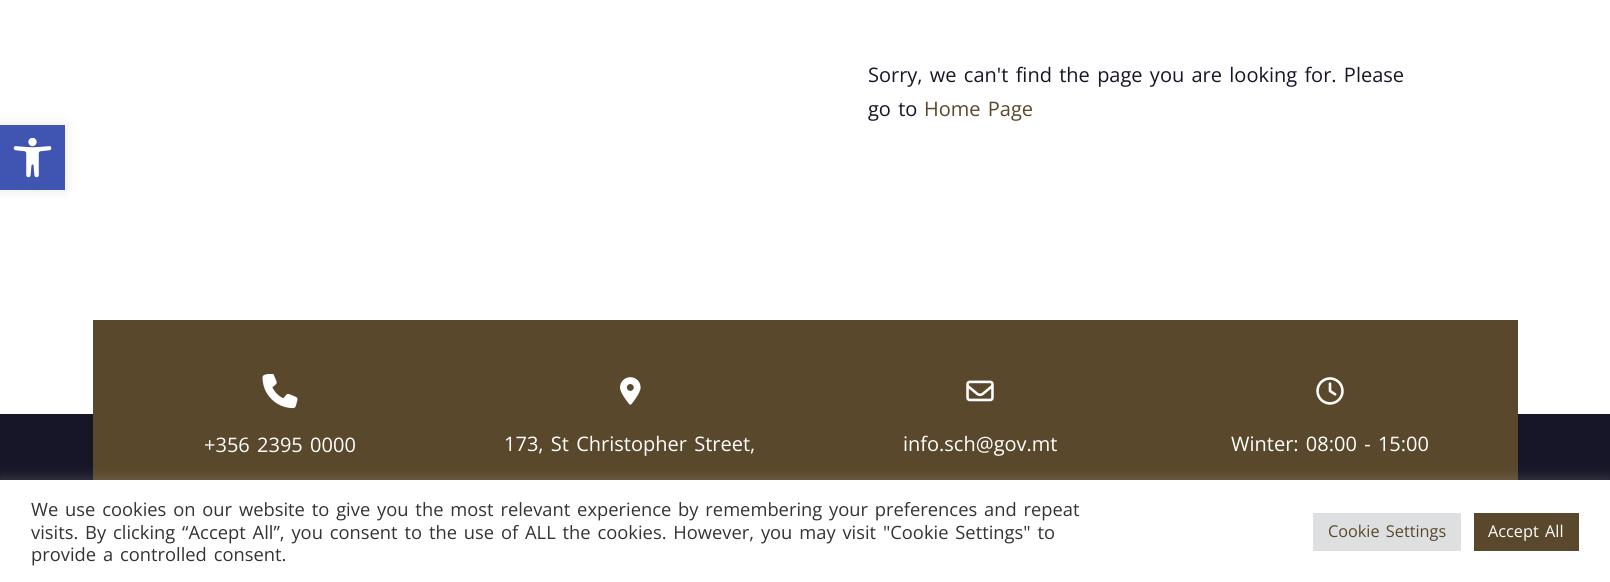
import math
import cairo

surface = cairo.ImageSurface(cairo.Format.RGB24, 1610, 582)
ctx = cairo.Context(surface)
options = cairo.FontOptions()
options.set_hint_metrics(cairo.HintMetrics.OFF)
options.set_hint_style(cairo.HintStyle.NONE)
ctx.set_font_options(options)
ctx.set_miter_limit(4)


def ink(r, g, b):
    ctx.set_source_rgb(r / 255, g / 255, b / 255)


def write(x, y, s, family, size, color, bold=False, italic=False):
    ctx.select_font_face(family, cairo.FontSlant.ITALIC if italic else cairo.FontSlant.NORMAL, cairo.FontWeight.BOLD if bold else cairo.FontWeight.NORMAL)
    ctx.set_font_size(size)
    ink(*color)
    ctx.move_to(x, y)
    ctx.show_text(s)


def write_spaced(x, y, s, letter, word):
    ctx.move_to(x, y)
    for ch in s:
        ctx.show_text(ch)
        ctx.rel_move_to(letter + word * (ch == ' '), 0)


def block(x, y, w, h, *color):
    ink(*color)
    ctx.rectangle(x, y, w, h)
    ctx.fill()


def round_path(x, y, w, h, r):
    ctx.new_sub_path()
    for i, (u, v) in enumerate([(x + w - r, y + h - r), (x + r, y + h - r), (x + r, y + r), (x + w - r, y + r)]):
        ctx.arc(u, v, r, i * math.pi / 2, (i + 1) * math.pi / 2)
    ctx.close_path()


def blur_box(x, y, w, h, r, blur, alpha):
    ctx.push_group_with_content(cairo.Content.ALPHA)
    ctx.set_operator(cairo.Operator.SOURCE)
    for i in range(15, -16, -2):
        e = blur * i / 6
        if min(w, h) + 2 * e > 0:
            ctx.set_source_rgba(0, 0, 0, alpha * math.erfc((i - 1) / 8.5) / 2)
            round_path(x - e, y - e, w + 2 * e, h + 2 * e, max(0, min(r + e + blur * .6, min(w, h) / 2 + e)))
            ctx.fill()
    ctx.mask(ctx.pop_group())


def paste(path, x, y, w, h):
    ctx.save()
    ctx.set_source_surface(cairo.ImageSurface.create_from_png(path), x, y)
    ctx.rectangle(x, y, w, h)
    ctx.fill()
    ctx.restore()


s1 = dict(family="Open Sans", size=20, color=(255, 255, 255))

ink(255, 255, 255)
ctx.paint()
ink(0, 0, 0)
blur_box(0, 125, 65, 65, 0, 6, 0.1)
block(0, 125, 65, 65, 64, 84, 178)
paste("pic1.png", 13, 138, 39, 40)
ctx.select_font_face("Open Sans")
ctx.set_font_size(20)
ink(23, 22, 40)
write_spaced(868, 82, "Sorry, we can't find the page you are looking for. Please", 0, 2.1)
write_spaced(868, 116, "go to", 0, 2.1)
ink(89, 72, 43)
write_spaced(924, 116, "Home Page", 0, 2.1)
block(0, 414, 1610, 66, 23, 22, 40)
block(93, 320, 1425, 160, 89, 72, 43)
paste("pic2.png", 262, 374, 36, 35)
ink(255, 255, 255)
write_spaced(204, 452, "+356 2395 0000", 0, 2.1)
paste("pic3.png", 620, 377, 21, 28)
write_spaced(504, 451, "173, St Christopher Street,", 0, 2.1)
paste("pic4.png", 966, 380, 28, 22)
write(903, 451, "info.sch@gov.mt", **s1)
paste("pic5.png", 1316, 377, 28, 28)
write_spaced(1231, 451, "Winter: 08:00 - 15:00", 0, 2.1)
ink(172, 171, 171)
blur_box(0, 479, 1610, 102, 0, 6, 0.3)
block(0, 480, 1610, 102, 255, 255, 255)
ctx.set_font_size(18.33)
ink(51, 51, 51)
write_spaced(31, 516, "We use cookies on our website to give you the most relevant experience by remembering your preferences and repeat", 0, 2.1)
write_spaced(31, 539, "visits. By clicking “Accept All”, you consent to the use of ALL the cookies. However, you may visit \"Cookie Settings\" to", 0, 2.1)
write_spaced(31, 561, "provide a controlled consent.", 0, 2.1)
block(1313, 513, 148, 38, 222, 223, 224)
ctx.set_font_size(16.25)
ink(89, 72, 43)
write_spaced(1328, 537, "Cookie Settings", 0, 2.1)
block(1474, 513, 105, 38, 89, 72, 43)
ink(255, 255, 255)
write_spaced(1488, 537, "Accept All", 0, 2.1)
surface.write_to_png("screenshot.png")
